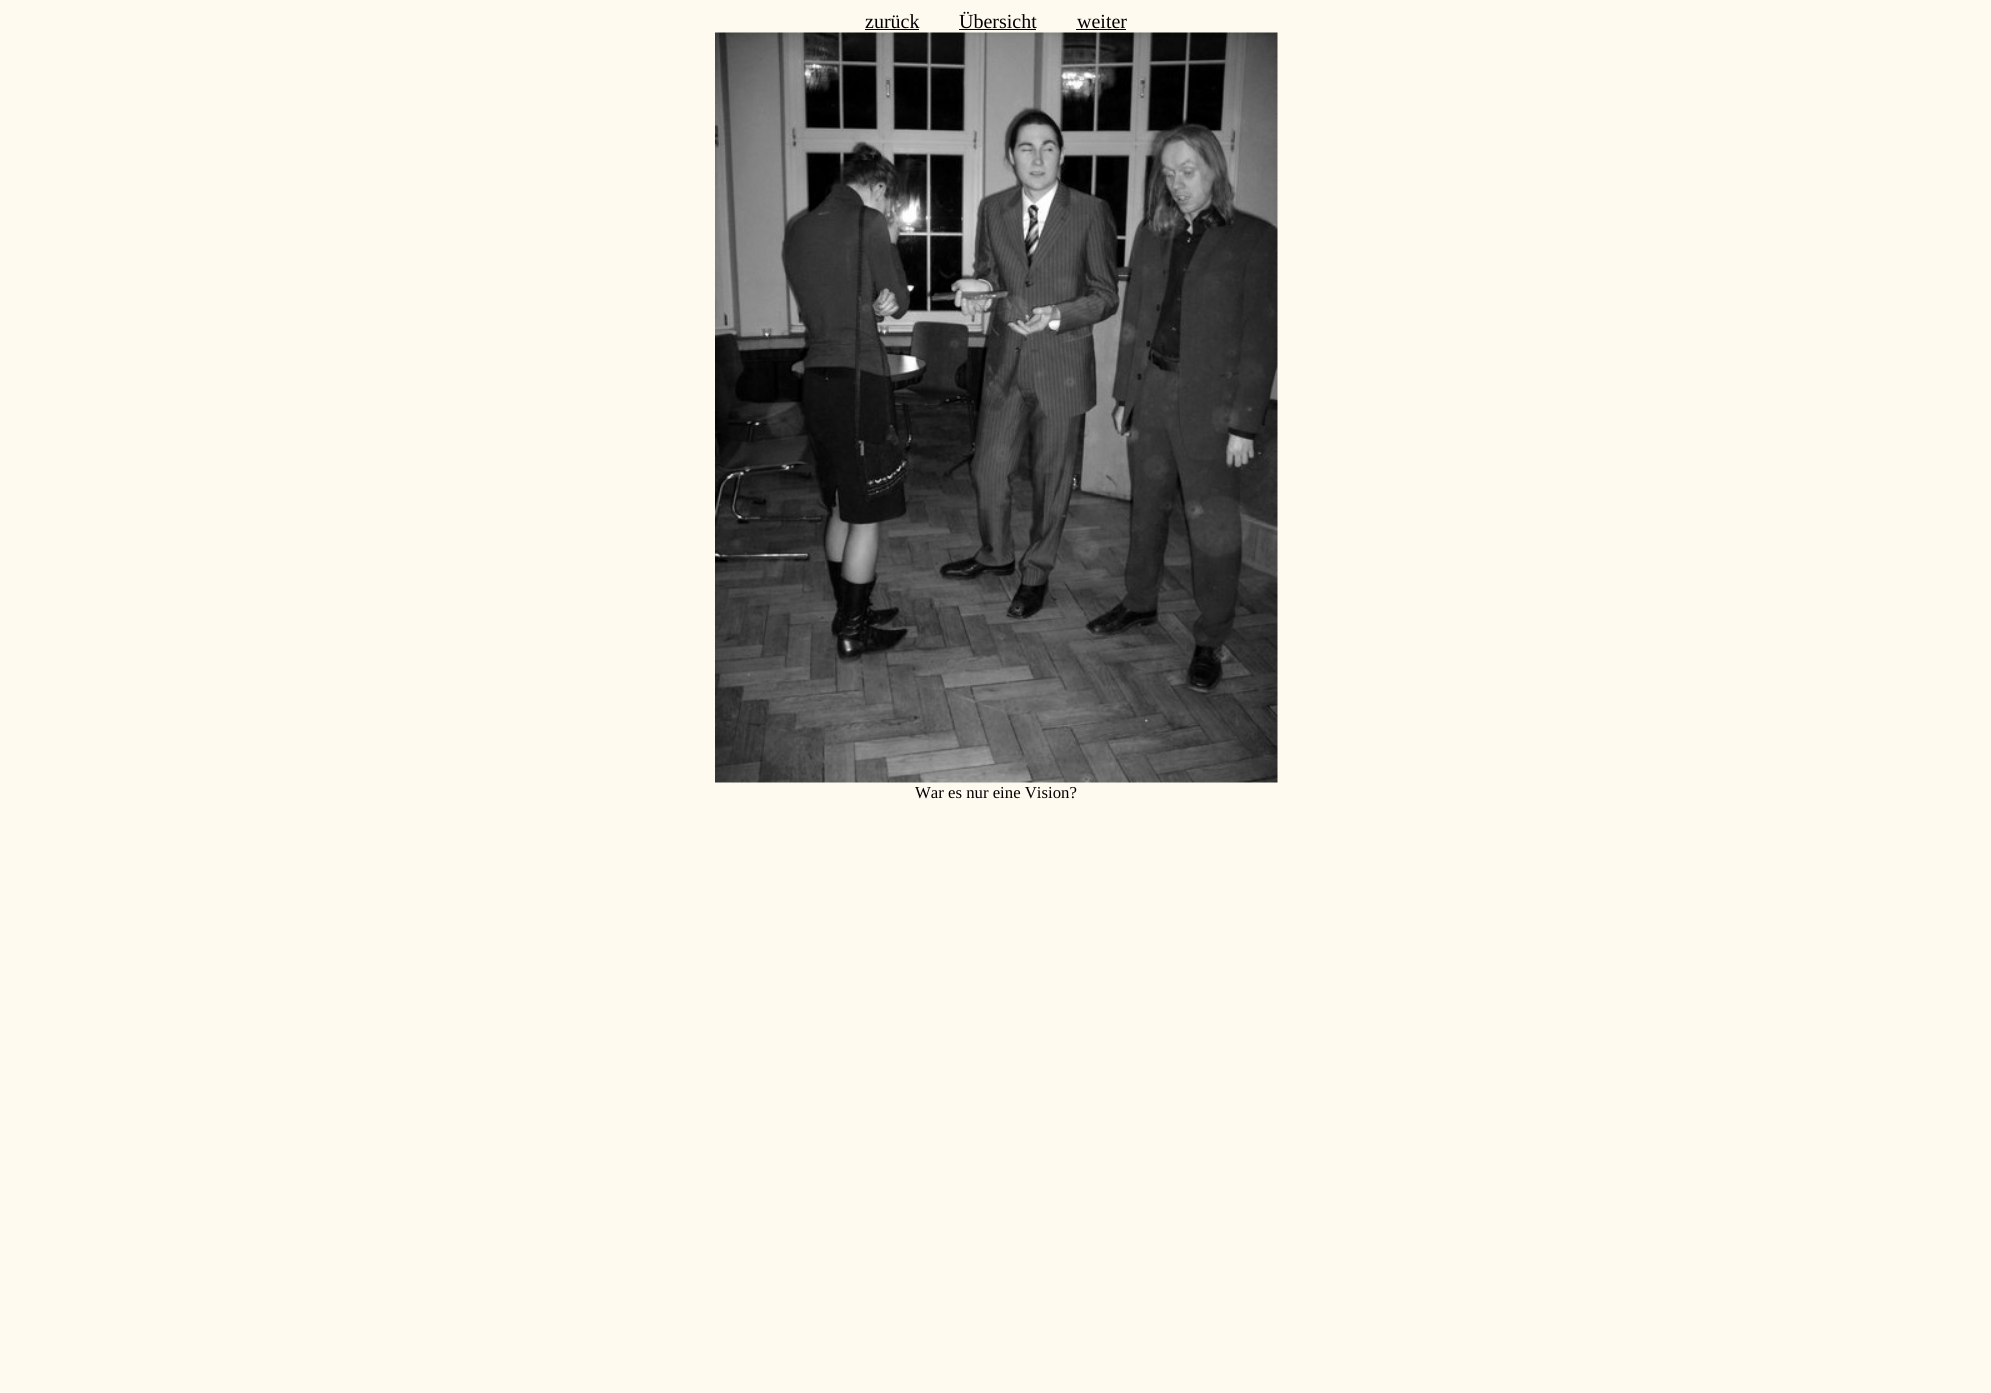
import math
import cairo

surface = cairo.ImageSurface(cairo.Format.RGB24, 1991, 1393)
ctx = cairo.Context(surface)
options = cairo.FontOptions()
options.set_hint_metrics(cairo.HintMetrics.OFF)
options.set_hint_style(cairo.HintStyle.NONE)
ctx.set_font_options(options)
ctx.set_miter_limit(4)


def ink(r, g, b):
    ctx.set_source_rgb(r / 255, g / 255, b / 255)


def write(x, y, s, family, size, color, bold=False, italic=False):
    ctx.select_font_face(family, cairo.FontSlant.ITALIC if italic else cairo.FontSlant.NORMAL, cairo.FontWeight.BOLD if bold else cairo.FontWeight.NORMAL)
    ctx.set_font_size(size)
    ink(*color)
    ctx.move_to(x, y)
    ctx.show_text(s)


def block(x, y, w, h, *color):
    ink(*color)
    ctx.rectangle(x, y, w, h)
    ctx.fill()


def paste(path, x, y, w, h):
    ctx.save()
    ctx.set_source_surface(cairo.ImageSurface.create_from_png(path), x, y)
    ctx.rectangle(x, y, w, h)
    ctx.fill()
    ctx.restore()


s1 = dict(family="Liberation Serif", size=20, color=(0, 0, 0))
s2 = dict(family="Liberation Serif", size=16.75, color=(0, 0, 0))

ink(255, 250, 240)
ctx.paint()
write(865, 28, "zurück", **s1)
block(865, 29, 54, 1, 0, 0, 0)
write(959, 28, "Übersicht", **s1)
block(959, 29, 77, 1, 0, 0, 0)
write(1077, 28, "weiter", **s1)
block(1076, 29, 50, 1, 0, 0, 0)
paste("pic1.png", 715, 32, 563, 751)
write(915, 798, "War es nur eine Vision?", **s2)
surface.write_to_png("screenshot.png")
